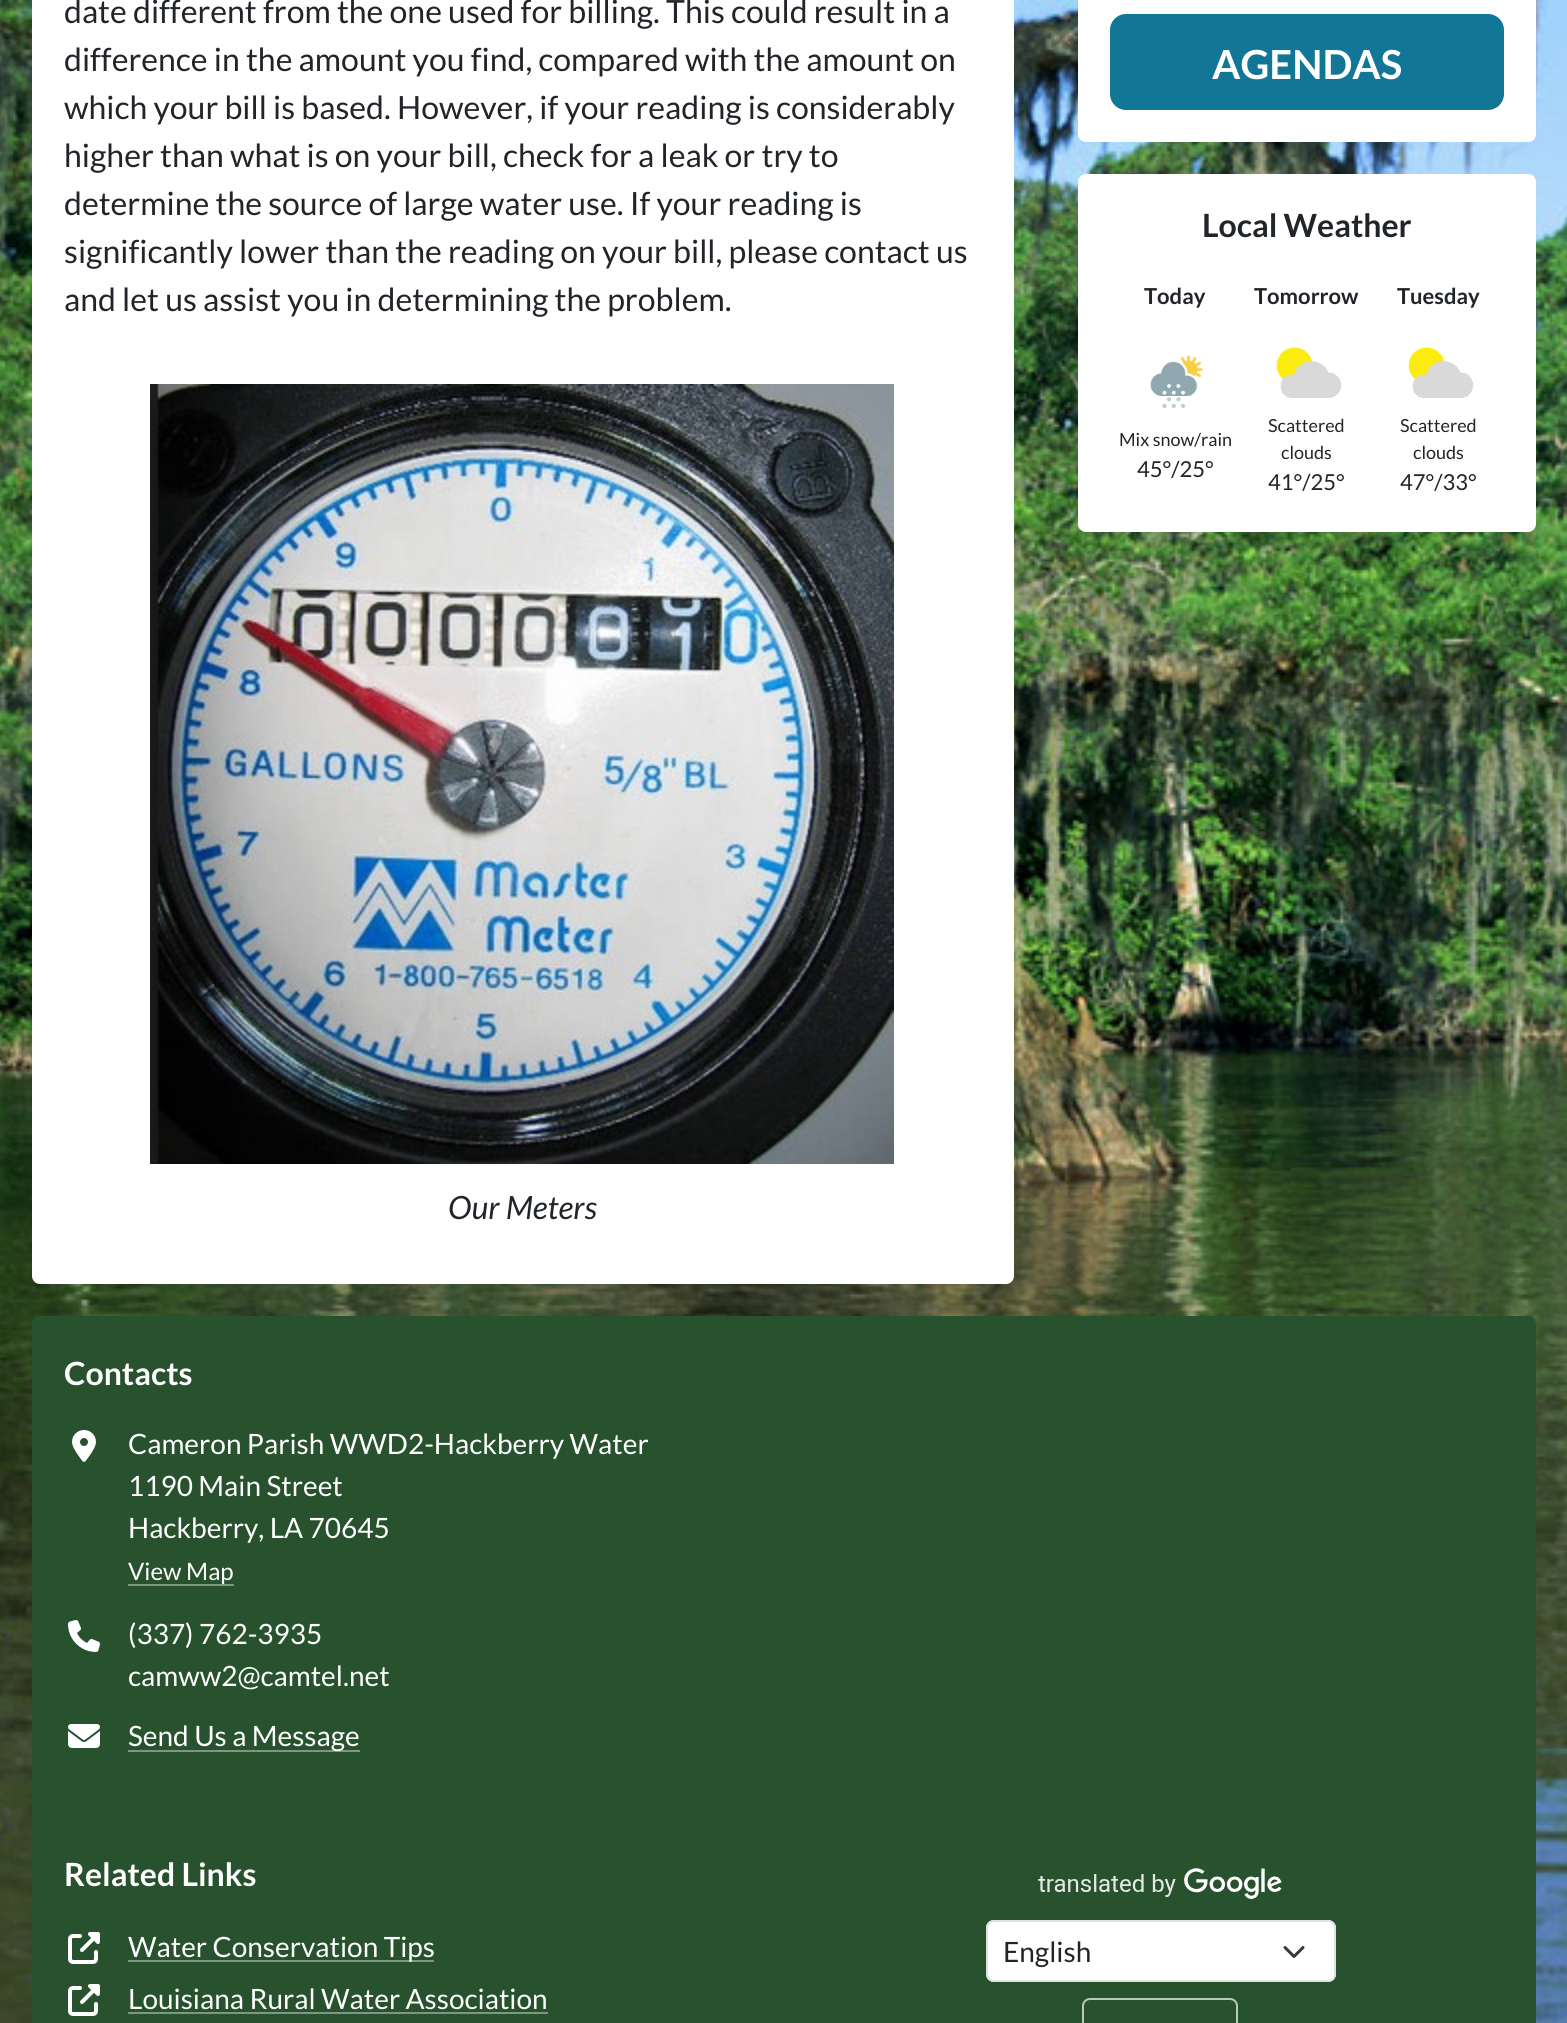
import math
import cairo

surface = cairo.ImageSurface(cairo.Format.RGB24, 1567, 2023)
ctx = cairo.Context(surface)
options = cairo.FontOptions()
options.set_hint_metrics(cairo.HintMetrics.OFF)
options.set_hint_style(cairo.HintStyle.NONE)
ctx.set_font_options(options)
ctx.set_miter_limit(4)


def ink(r, g, b):
    ctx.set_source_rgb(r / 255, g / 255, b / 255)


def write(x, y, s, family, size, color, bold=False, italic=False):
    ctx.select_font_face(family, cairo.FontSlant.ITALIC if italic else cairo.FontSlant.NORMAL, cairo.FontWeight.BOLD if bold else cairo.FontWeight.NORMAL)
    ctx.set_font_size(size)
    ink(*color)
    ctx.move_to(x, y)
    ctx.show_text(s)


def block(x, y, w, h, *color):
    ink(*color)
    ctx.rectangle(x, y, w, h)
    ctx.fill()


def round_path(x, y, w, h, r):
    ctx.new_sub_path()
    for i, (u, v) in enumerate([(x + w - r, y + h - r), (x + r, y + h - r), (x + r, y + r), (x + w - r, y + r)]):
        ctx.arc(u, v, r, i * math.pi / 2, (i + 1) * math.pi / 2)
    ctx.close_path()


def paste(path, x, y, w, h):
    ctx.save()
    ctx.set_source_surface(cairo.ImageSurface.create_from_png(path), x, y)
    ctx.rectangle(x, y, w, h)
    ctx.fill()
    ctx.restore()


s1 = dict(family="Lato", size=32, color=(33, 37, 41))
s2 = dict(family="Lato", size=32, color=(33, 37, 41), italic=True)
s3 = dict(family="Lato", size=40, color=(255, 255, 255), bold=True)
s4 = dict(family="Lato", size=32, color=(33, 37, 41), bold=True)
s5 = dict(family="Lato", size=22, color=(33, 37, 41), bold=True)
s6 = dict(family="Lato", size=18, color=(33, 37, 41))
s7 = dict(family="Lato", size=22, color=(33, 37, 41))
s8 = dict(family="Lato", size=32, color=(255, 255, 255), bold=True)
s9 = dict(family="Lato", size=28, color=(255, 255, 255))
s10 = dict(family="Lato", size=24, color=(255, 255, 255))
s11 = dict(family="Lato", size=28, color=(33, 37, 41))

ink(255, 255, 255)
ctx.paint()
paste("pic1.png", 0, 0, 1567, 2023)
ink(255, 255, 255)
round_path(32, -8, 982, 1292, 8)
ctx.fill()
write(64, 23, "date different from the one used for billing. This could result in a", **s1)
write(64, 71, "difference in the amount you find, compared with the amount on", **s1)
write(64, 119, "which your bill is based. However, if your reading is considerably", **s1)
write(64, 167, "higher than what is on your bill, check for a leak or try to", **s1)
write(64, 215, "determine the source of large water use. If your reading is", **s1)
write(64, 263, "significantly lower than the reading on your bill, please contact us", **s1)
write(64, 311, "and let us assist you in determining the problem.", **s1)
paste("pic2.png", 150, 384, 744, 780)
write(448, 1219, "Our Meters", **s2)
ink(255, 255, 255)
round_path(1078, -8, 458, 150, 8)
ctx.fill()
ink(18, 118, 150)
round_path(1111, 15, 392, 94, 15)
ctx.fill_preserve()
ctx.stroke()
write(1212, 79, "AGENDAS", **s3)
round_path(1078, 174, 458, 358, 8)
ctx.fill()
write(1202, 237, "Local Weather", **s4)
write(1144, 304, "Today", **s5)
write(1254, 304, "Tomorrow", **s5)
write(1397, 304, "Tuesday", **s5)
paste("pic3.png", 1150, 355, 53, 53)
write(1119, 446, "Mix snow/rain", **s6)
write(1137, 477, "45°/25°", **s7)
paste("pic4.png", 1276, 347, 66, 51)
write(1268, 432, "Scattered", **s6)
write(1281, 459, "clouds", **s6)
write(1268, 490, "41°/25°", **s7)
paste("pic4.png", 1408, 347, 66, 51)
write(1400, 432, "Scattered", **s6)
write(1413, 459, "clouds", **s6)
write(1400, 490, "47°/33°", **s7)
ink(40, 81, 46)
round_path(32, 1316, 1504, 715, 8)
ctx.fill()
write(64, 1385, "Contacts", **s8)
paste("pic5.png", 72, 1430, 24, 32)
write(128, 1454, "Cameron Parish WWD2-Hackberry Water", **s9)
write(128, 1496, "1190 Main Street", **s9)
write(128, 1538, "Hackberry, LA 70645", **s9)
block(128, 1584, 106, 2, 126, 151, 130)
write(128, 1580, "View Map", **s10)
paste("pic6.png", 68, 1620, 32, 32)
write(128, 1644, "(337) 762-3935", **s9)
write(128, 1686, "camww2@camtel.net", **s9)
paste("pic7.png", 68, 1724, 32, 24)
block(128, 1750, 232, 2, 126, 151, 130)
write(128, 1746, "Send Us a Message", **s9)
write(64, 1886, "Related Links", **s8)
paste("pic8.png", 68, 1932, 32, 32)
block(128, 1960, 306, 2, 126, 151, 130)
write(128, 1957, "Water Conservation Tips", **s9)
paste("pic8.png", 68, 1984, 32, 32)
write(128, 2009, "Louisiana Rural Water Association", **s9)
block(128, 2012, 420, 2, 126, 151, 130)
paste("pic9.png", 1038, 1868, 244, 31)
ink(255, 255, 255)
round_path(986, 1920, 350, 62, 8)
ctx.fill()
ctx.new_path()
ctx.move_to(1285, 1947.5)
ctx.line_to(1294, 1956.5)
ctx.line_to(1303, 1947.5)
ink(52, 58, 64)
ctx.set_line_width(3)
ctx.set_line_cap(cairo.LineCap.ROUND)
ctx.set_line_join(cairo.LineJoin.ROUND)
ctx.stroke()
round_path(987, 1921, 348, 60, 7)
ink(222, 226, 230)
ctx.set_line_width(2)
ctx.set_line_cap(cairo.LineCap.BUTT)
ctx.set_line_join(cairo.LineJoin.MITER)
ctx.stroke()
write(1003, 1962, "English", **s11)
round_path(1083, 1999, 154, 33, 7)
ink(183, 201, 186)
ctx.stroke()
surface.write_to_png("screenshot.png")
